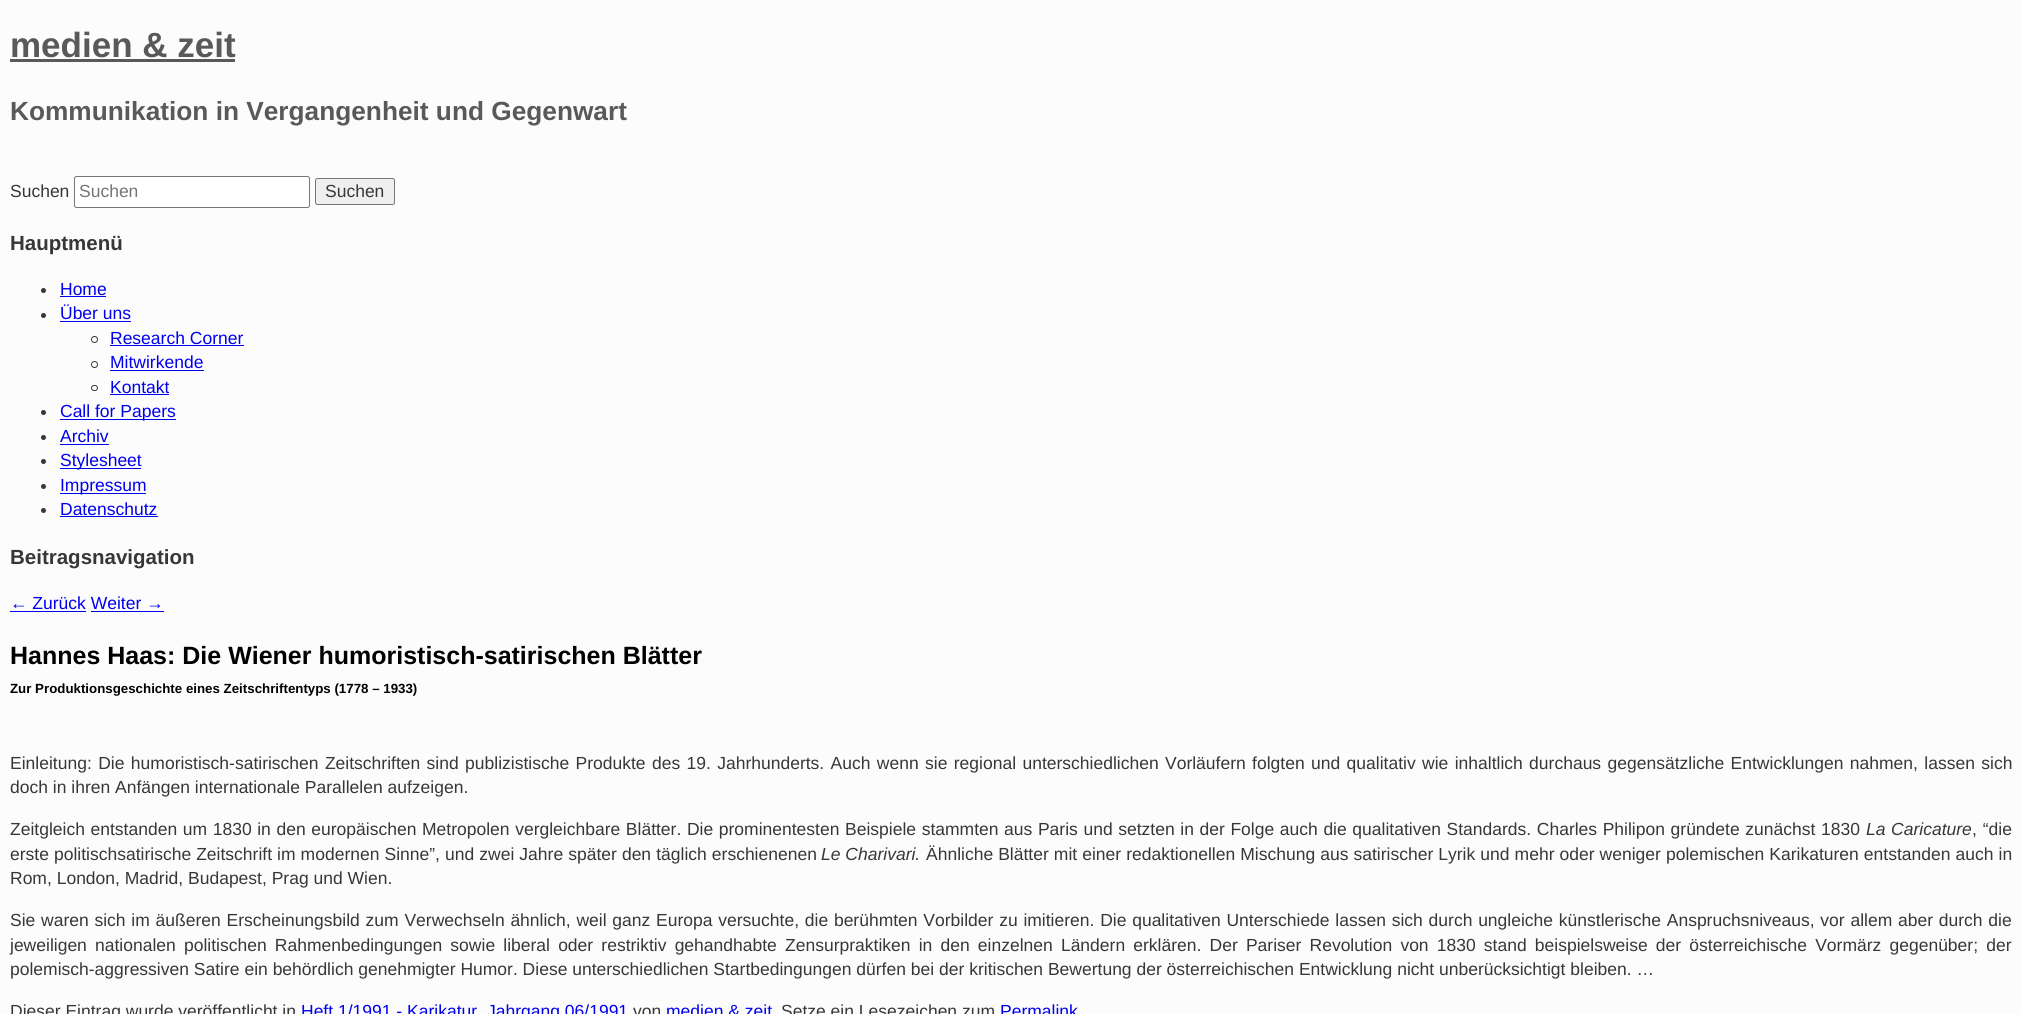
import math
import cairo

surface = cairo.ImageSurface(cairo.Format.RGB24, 2021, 1014)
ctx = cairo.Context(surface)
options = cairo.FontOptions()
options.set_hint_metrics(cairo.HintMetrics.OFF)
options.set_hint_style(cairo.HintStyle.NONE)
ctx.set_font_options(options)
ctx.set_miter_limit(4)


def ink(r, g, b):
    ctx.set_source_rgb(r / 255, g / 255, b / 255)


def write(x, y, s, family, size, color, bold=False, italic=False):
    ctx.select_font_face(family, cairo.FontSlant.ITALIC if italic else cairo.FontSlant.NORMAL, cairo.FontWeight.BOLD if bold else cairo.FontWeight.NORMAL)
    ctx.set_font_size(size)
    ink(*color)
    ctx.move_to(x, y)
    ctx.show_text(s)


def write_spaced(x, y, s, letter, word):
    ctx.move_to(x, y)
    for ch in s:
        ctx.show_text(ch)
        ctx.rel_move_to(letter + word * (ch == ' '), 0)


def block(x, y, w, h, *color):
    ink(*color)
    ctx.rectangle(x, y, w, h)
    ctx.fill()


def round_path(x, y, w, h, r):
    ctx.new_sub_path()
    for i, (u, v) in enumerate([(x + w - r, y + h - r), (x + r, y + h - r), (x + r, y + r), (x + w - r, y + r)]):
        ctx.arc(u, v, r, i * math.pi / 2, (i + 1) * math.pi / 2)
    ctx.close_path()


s1 = dict(family="Liberation Sans", size=35, color=(89, 89, 89), bold=True)
s2 = dict(family="Liberation Sans", size=26.25, color=(89, 89, 89), bold=True)
s3 = dict(family="Liberation Sans", size=17.5, color=(55, 55, 55))
s4 = dict(family="Liberation Sans", size=17.5, color=(117, 117, 117))
s5 = dict(family="Liberation Sans", size=20.5, color=(55, 55, 55), bold=True)
s6 = dict(family="Liberation Sans", size=17.5, color=(0, 0, 238))
s7 = dict(family="Liberation Sans", size=25, color=(0, 0, 0), bold=True)
s8 = dict(family="Liberation Sans", size=13.3, color=(0, 0, 0), bold=True)
s9 = dict(family="Liberation Sans", size=17.5, color=(55, 55, 55), italic=True)

ink(252, 252, 252)
ctx.paint()
write(10, 57, "medien & zeit", **s1)
block(10, 59, 225, 3, 89, 89, 89)
write(10, 120, "Kommunikation in Vergangenheit und Gegenwart", **s2)
write(10, 197, "Suchen", **s3)
ink(255, 255, 255)
round_path(74.5, 176.5, 235, 31, 2)
ctx.fill_preserve()
ink(118, 118, 118)
ctx.set_line_width(1)
ctx.stroke()
write(79, 197, "Suchen", **s4)
ink(239, 239, 239)
round_path(315.5, 178.5, 79, 26, 2)
ctx.fill_preserve()
ink(118, 118, 118)
ctx.stroke()
write(325, 197, "Suchen", **s3)
write(10, 250, "Hauptmenü", **s5)
ctx.new_path()
ctx.arc(43.5, 290.5, 2.5, 0, 2 * math.pi)
ctx.fill()
write(60, 295, "Home", **s6)
block(60, 296, 46, 1, 0, 0, 238)
ink(55, 55, 55)
ctx.new_path()
ctx.arc(43.5, 315.5, 2.5, 0, 2 * math.pi)
ctx.fill()
write(60, 319, "Über uns", **s6)
block(60, 321, 71, 1, 0, 0, 238)
ctx.new_path()
ctx.arc(94.5, 339.5, 3, 0, 2 * math.pi)
ink(55, 55, 55)
ctx.stroke()
write(110, 344, "Research Corner", **s6)
block(110, 345, 134, 1, 0, 0, 238)
ctx.new_path()
ctx.arc(94.5, 364.5, 3, 0, 2 * math.pi)
ink(55, 55, 55)
ctx.stroke()
write(110, 368, "Mitwirkende", **s6)
block(110, 370, 94, 1, 0, 0, 238)
round_path(91.5, 385.5, 6, 5, 2.5)
ink(55, 55, 55)
ctx.stroke()
write(110, 393, "Kontakt", **s6)
block(110, 394, 59, 1, 0, 0, 238)
ink(55, 55, 55)
ctx.new_path()
ctx.arc(43.5, 412.5, 2.5, 0, 2 * math.pi)
ctx.fill()
block(60, 419, 116, 1, 0, 0, 238)
write(60, 417, "Call for Papers", **s6)
ink(55, 55, 55)
ctx.new_path()
ctx.arc(43.5, 437.5, 2.5, 0, 2 * math.pi)
ctx.fill()
write(60, 442, "Archiv", **s6)
block(60, 444, 49, 1, 0, 0, 238)
ink(55, 55, 55)
ctx.new_path()
ctx.arc(43.5, 461.5, 2.5, 0, 2 * math.pi)
ctx.fill()
block(60, 468, 81, 1, 0, 0, 238)
write(60, 466, "Stylesheet", **s6)
ink(55, 55, 55)
ctx.new_path()
ctx.arc(43.5, 486.5, 2.5, 0, 2 * math.pi)
ctx.fill()
block(60, 493, 86, 1, 0, 0, 238)
write(60, 491, "Impressum", **s6)
ink(55, 55, 55)
ctx.new_path()
ctx.arc(43.5, 510.5, 2.5, 0, 2 * math.pi)
ctx.fill()
write(60, 515, "Datenschutz", **s6)
block(60, 516, 98, 1, 0, 0, 238)
write(10, 564, "Beitragsnavigation", **s5)
write(10, 609, "← Zurück Weiter →", **s6)
block(10, 611, 76, 1, 0, 0, 238)
block(91, 611, 73, 1, 0, 0, 238)
write(10, 664, "Hannes Haas: Die Wiener humoristisch-satirischen Blätter", **s7)
write(10, 693, "Zur Produktionsgeschichte eines Zeitschriftentyps (1778 – 1933)", **s8)
write(10, 769, "Einleitung", **s3)
write_spaced(87, 769, ": Die humoristisch-satirischen Zeitschriften sind publizistische Produkte des 19. Jahrhunderts. Auch wenn sie regional unterschiedlichen Vorläufern folgten und qualitativ wie inhaltlich durchaus gegensätzliche Entwicklungen nahmen, lassen sich", 0, 1.5)
write(10, 793, "doch in ihren Anfängen internationale Parallelen aufzeigen.", **s3)
write_spaced(10, 835, "Zeitgleich entstanden um 1830 in den europäischen Metropolen vergleichbare Blätter. Die prominentesten Beispiele stammten aus Paris und setzten in der Folge auch die qualitativen Standards. Charles Philipon gründete zunächst 1830", 0, 0.75)
ctx.select_font_face("Liberation Sans", cairo.FontSlant.ITALIC)
write_spaced(1866, 835, "La Caricature", 0, 0.75)
ctx.select_font_face("Liberation Sans")
write_spaced(1972, 835, ", “die", 0, 1)
write_spaced(10, 860, "erste politischsatirische Zeitschrift im modernen Sinne”, und zwei Jahre später den täglich erschienenen", 0, 0.2)
write(821, 860, "Le Charivari.", **s9)
ctx.select_font_face("Liberation Sans")
write_spaced(926, 860, "Ähnliche Blätter mit einer redaktionellen Mischung aus satirischer Lyrik und mehr oder weniger polemischen Karikaturen entstanden auch in", 0, 0.2)
write(10, 884, "Rom, London, Madrid, Budapest, Prag und Wien.", **s3)
write_spaced(10, 926, "Sie waren sich im äußeren Erscheinungsbild zum Verwechseln ähnlich, weil ganz Europa versuchte, die berühmten Vorbilder zu imitieren. Die qualitativen Unterschiede lassen sich durch ungleiche künstlerische Anspruchsniveaus, vor allem aber durch die", 0, 0.9)
write_spaced(10, 951, "jeweiligen nationalen politischen Rahmenbedingungen sowie liberal oder restriktiv gehandhabte Zensurpraktiken in den einzelnen Ländern erklären. Der Pariser Revolution von 1830 stand beispielsweise der österreichische Vormärz gegenüber; der", 0, 3.3)
write(10, 975, "polemisch-aggressiven Satire ein behördlich genehmigter Humor. Diese unterschiedlichen Startbedingungen dürfen bei der kritischen Bewertung der österreichischen Entwicklung nicht unberücksichtigt bleiben. …", **s3)
write(10, 1017, "Dieser Eintrag wurde veröffentlicht in", **s3)
write(301, 1017, "Heft 1/1991 - Karikatur", **s6)
write(487, 1017, "Jahrgang 06/1991", **s6)
write(633, 1017, "von", **s3)
write(666, 1017, "medien & zeit", **s6)
write(781, 1017, "Setze ein Lesezeichen zum", **s3)
write(1000, 1017, "Permalink", **s6)
surface.write_to_png("screenshot.png")
